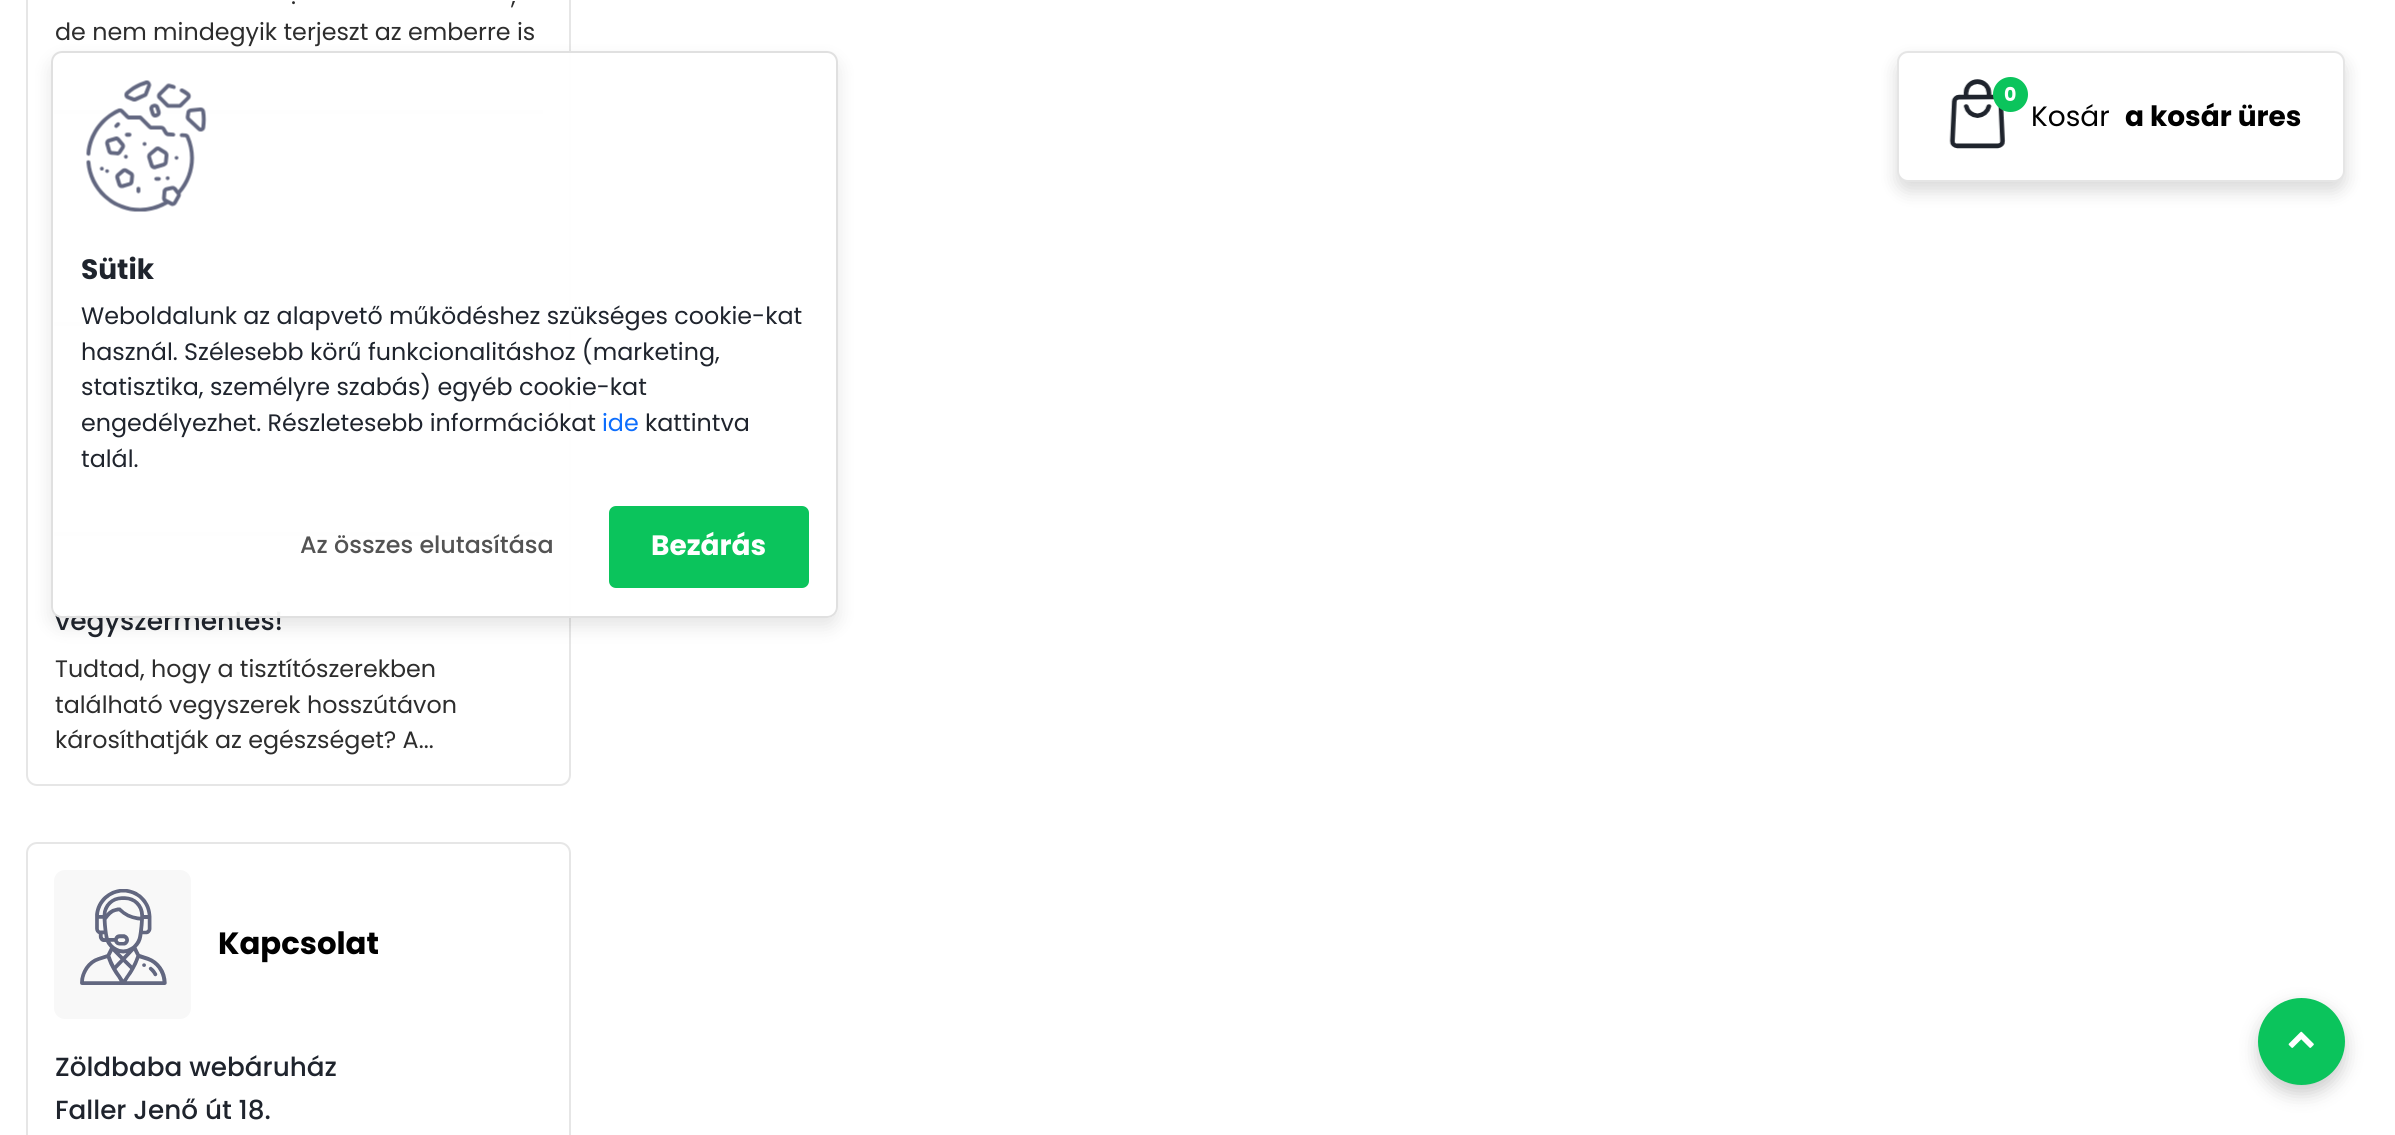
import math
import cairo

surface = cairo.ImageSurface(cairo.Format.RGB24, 2395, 1135)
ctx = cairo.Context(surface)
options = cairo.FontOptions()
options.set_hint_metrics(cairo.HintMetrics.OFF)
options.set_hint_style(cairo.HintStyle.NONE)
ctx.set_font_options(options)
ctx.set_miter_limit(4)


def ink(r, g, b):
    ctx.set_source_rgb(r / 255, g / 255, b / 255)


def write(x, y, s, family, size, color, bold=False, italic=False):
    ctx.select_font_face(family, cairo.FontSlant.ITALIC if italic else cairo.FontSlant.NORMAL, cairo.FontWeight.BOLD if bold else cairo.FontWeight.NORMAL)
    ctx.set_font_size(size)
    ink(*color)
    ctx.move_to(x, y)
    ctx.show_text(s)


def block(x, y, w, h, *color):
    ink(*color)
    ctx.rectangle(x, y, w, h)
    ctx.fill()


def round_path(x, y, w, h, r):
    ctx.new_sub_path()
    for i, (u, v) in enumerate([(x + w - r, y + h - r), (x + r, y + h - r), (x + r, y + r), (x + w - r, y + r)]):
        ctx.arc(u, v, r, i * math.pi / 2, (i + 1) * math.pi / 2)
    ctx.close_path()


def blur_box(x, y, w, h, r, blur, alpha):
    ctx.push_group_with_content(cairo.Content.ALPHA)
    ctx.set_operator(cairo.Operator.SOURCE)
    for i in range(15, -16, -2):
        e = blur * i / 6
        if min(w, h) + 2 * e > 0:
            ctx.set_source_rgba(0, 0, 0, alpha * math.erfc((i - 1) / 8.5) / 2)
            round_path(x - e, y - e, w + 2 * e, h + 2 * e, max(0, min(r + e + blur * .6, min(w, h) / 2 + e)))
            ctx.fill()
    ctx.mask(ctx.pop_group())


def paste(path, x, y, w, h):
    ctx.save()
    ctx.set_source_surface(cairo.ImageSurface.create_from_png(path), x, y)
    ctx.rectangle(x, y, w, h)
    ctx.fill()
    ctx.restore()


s1 = dict(family="Poppins", size=23.8, color=(45, 45, 45))
s2 = dict(family="Poppins Medium", size=26.5, color=(31, 36, 45))
s3 = dict(family="Poppins", size=30.75, color=(0, 0, 0), bold=True)
s4 = dict(family="Poppins Medium", size=26.25, color=(31, 36, 45))
s5 = dict(family="Poppins", size=19, color=(255, 255, 255), bold=True)
s6 = dict(family="Poppins", size=28, color=(0, 0, 0))
s7 = dict(family="Poppins", size=28, color=(0, 0, 0), bold=True)
s8 = dict(family="Poppins", size=28, color=(31, 36, 45), bold=True)
s9 = dict(family="Poppins", size=23.8, color=(31, 36, 45))
s10 = dict(family="Poppins", size=23.8, color=(13, 110, 253))
s11 = dict(family="Poppins Medium", size=23.8, color=(83, 83, 83))
s12 = dict(family="Poppins", size=28, color=(255, 255, 255), bold=True)

ink(255, 255, 255)
ctx.paint()
round_path(27, -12, 543, 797, 10)
ink(230, 230, 230)
ctx.stroke()
write(291, 4, ".", **s1)
write(511, 4, ",", **s1)
write(55, 40, "de nem mindegyik terjeszt az emberre is", **s1)
block(54, 110, 489, 4, 237, 237, 237)
block(54, 322, 489, 4, 237, 237, 237)
block(54, 532, 489, 4, 237, 237, 237)
write(55, 630, "vegyszermentes!", **s2)
write(55, 677, "Tudtad, hogy a tisztítószerekben", **s1)
write(55, 713, "található vegyszerek hosszútávon", **s1)
write(55, 748, "károsíthatják az egészséget? A...", **s1)
round_path(27, 843, 543, 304, 10)
ink(230, 230, 230)
ctx.stroke()
ink(248, 248, 248)
round_path(54, 870, 137, 149, 11)
ctx.fill()
paste("pic1.png", 80, 889, 87, 96)
write(218, 954, "Kapcsolat", **s3)
write(55, 1076, "Zöldbaba webáruház", **s4)
write(55, 1119, "Faller Jenő út 18.", **s4)
ink(0, 0, 0)
blur_box(1897, 60, 448, 131, 11, 9, 0.15)
ink(255, 255, 255)
round_path(1898, 52, 446, 129, 10)
ctx.fill_preserve()
ink(229, 229, 229)
ctx.stroke()
paste("pic2.png", 1949, 79, 57, 70)
ink(11, 196, 92)
ctx.arc(2010.5, 94.5, 17.5, 0, 2 * math.pi)
ctx.fill()
write(2004, 101, "0", **s5)
write(2031, 126, "Kosár", **s6)
write(2125, 126, "a kosár üres", **s7)
ctx.save()
ctx.set_fill_rule(cairo.FillRule.EVEN_ODD)
ctx.new_path()
ctx.move_to(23, 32)
ctx.line_to(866, 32)
ctx.line_to(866, 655)
ctx.line_to(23, 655)
ctx.close_path()
ctx.move_to(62, 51)
ctx.line_to(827, 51)
ctx.curve_to(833, 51, 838, 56, 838, 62)
ctx.line_to(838, 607)
ctx.curve_to(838, 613, 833, 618, 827, 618)
ctx.line_to(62, 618)
ctx.curve_to(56, 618, 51, 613, 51, 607)
ctx.line_to(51, 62)
ctx.curve_to(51, 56, 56, 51, 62, 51)
ctx.close_path()
ctx.clip()
ink(0, 0, 0)
blur_box(51, 60, 787, 567, 11, 9, 0.1)
ctx.restore()
ctx.set_source_rgba(1, 1, 1, 0.95)
round_path(52, 52, 785, 565, 10)
ctx.fill_preserve()
ink(224, 224, 224)
ctx.stroke()
paste("pic3.png", 86, 80, 121, 132)
write(81, 279, "Sütik", **s8)
write(81, 324, "Weboldalunk az alapvető működéshez szükséges cookie-kat", **s9)
write(81, 360, "használ. Szélesebb körű funkcionalitáshoz (marketing,", **s9)
write(81, 395, "statisztika, személyre szabás) egyéb cookie-kat", **s9)
write(81, 431, "engedélyezhet. Részletesebb információkat", **s9)
write(602, 431, "ide", **s10)
write(645, 431, "kattintva", **s9)
write(81, 467, "talál.", **s9)
write(300, 553, "Az összes elutasítása", **s11)
ink(11, 196, 92)
round_path(609, 506, 200, 82, 7)
ctx.fill()
write(651, 555, "Bezárás", **s12)
ink(0, 0, 0)
blur_box(2258, 1006, 87, 88, 43.5, 9, 0.2)
ink(11, 196, 92)
ctx.arc(2301.5, 1041.5, 43.5, 0, 2 * math.pi)
ctx.fill()
paste("pic4.png", 2288, 1031, 26, 17)
surface.write_to_png("screenshot.png")
